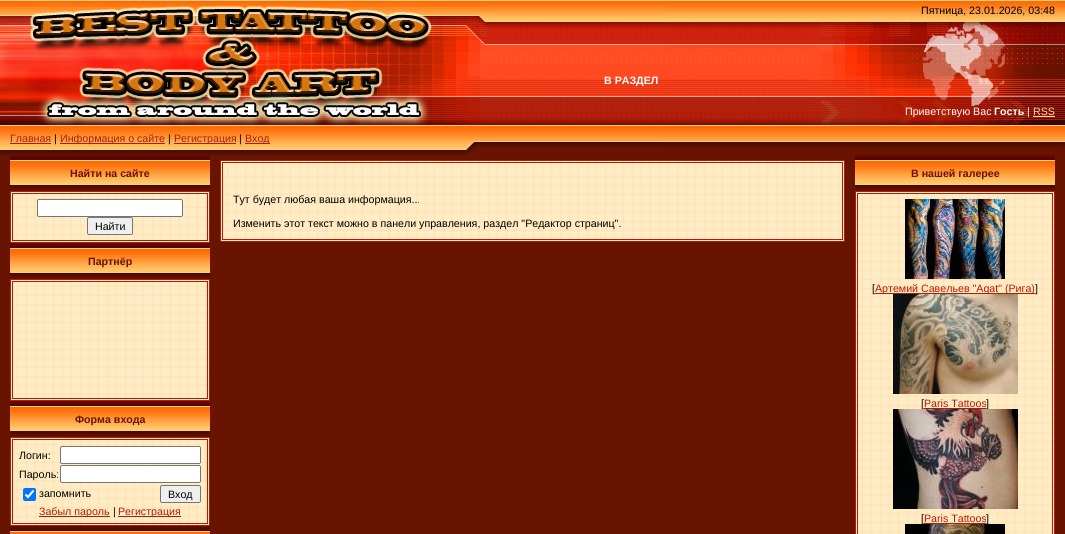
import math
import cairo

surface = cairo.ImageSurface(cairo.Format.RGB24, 1065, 534)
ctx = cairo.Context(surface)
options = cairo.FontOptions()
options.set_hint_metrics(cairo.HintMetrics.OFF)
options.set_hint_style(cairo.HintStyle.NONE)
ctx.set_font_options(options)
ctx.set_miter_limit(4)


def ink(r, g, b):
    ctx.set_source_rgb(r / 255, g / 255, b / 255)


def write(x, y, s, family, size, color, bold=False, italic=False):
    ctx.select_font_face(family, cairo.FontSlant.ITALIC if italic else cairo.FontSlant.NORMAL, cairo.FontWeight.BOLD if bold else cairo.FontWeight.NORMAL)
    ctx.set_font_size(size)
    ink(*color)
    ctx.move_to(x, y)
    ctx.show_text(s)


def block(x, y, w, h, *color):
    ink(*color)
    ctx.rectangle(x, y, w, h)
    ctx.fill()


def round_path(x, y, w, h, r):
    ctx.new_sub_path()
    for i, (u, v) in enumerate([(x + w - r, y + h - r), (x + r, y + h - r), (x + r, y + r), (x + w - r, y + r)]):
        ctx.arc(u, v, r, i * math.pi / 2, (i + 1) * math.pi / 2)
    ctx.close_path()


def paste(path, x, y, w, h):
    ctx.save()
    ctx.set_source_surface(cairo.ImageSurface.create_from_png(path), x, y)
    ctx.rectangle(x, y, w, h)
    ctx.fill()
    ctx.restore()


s1 = dict(family="Liberation Sans", size=10.65, color=(255, 255, 255), bold=True)
s2 = dict(family="Liberation Sans", size=10.65, color=(0, 0, 0))
s3 = dict(family="Liberation Sans", size=10.65, color=(255, 255, 255))
s4 = dict(family="Liberation Sans", size=10.65, color=(255, 220, 153))
s5 = dict(family="Liberation Sans", size=10.65, color=(178, 27, 4))
s6 = dict(family="Liberation Sans", size=10.65, color=(105, 20, 0), bold=True)

ink(105, 20, 0)
ctx.paint()
paste("pic1.png", 489, 0, 176, 155)
write(604, 84, "В РАЗДЕЛ", **s1)
paste("pic2.png", 665, 0, 400, 155)
write(921, 14, "Пятница, 23.01.2026, 03:48", **s2)
write(905, 115, "Приветствую Вас", **s3)
write(994, 115, "Гость", **s1)
write(1027, 115, "|", **s3)
write(1033, 115, "RSS", **s4)
block(1033, 116, 22, 1, 255, 220, 153)
paste("pic3.png", 0, 0, 489, 155)
write(10, 142, "Главная", **s5)
block(10, 143, 41, 1, 178, 27, 4)
write(54, 142, "|", **s2)
block(60, 143, 105, 1, 178, 27, 4)
write(60, 142, "Информация о сайте", **s5)
write(168, 142, "|", **s2)
block(174, 143, 62, 1, 178, 27, 4)
write(174, 142, "Регистрация", **s5)
write(239, 142, "|", **s2)
block(245, 143, 25, 1, 178, 27, 4)
write(245, 142, "Вход", **s5)
paste("pic4.png", 10, 155, 200, 36)
write(70, 177, "Найти на сайте", **s6)
paste("pic5.png", 11, 192, 198, 50)
ctx.rectangle(10.5, 191.5, 199, 51)
ink(178, 27, 4)
ctx.set_line_width(1)
ctx.stroke()
ctx.rectangle(12.5, 193.5, 195, 47)
ctx.stroke()
ink(255, 255, 255)
round_path(37.5, 199.5, 145, 17, 1.5)
ctx.fill_preserve()
ink(118, 118, 118)
ctx.stroke()
ink(239, 239, 239)
round_path(87.5, 217.5, 45, 17, 1.5)
ctx.fill_preserve()
ink(118, 118, 118)
ctx.stroke()
write(95, 230, "Найти", **s2)
paste("pic4.png", 10, 243, 200, 36)
write(88, 265, "Партнёр", **s6)
paste("pic6.png", 11, 280, 198, 120)
ctx.rectangle(10.5, 279.5, 199, 121)
ink(178, 27, 4)
ctx.stroke()
ctx.rectangle(12.5, 281.5, 195, 117)
ctx.stroke()
paste("pic4.png", 10, 401, 200, 36)
write(75, 423, "Форма входа", **s6)
paste("pic7.png", 11, 438, 198, 87)
ctx.rectangle(10.5, 437.5, 199, 88)
ink(178, 27, 4)
ctx.stroke()
ctx.rectangle(12.5, 439.5, 195, 84)
ctx.stroke()
write(19, 459, "Логин:", **s2)
ink(255, 255, 255)
round_path(60.5, 446.5, 140, 17, 1.5)
ctx.fill_preserve()
ink(118, 118, 118)
ctx.stroke()
write(19, 478, "Пароль:", **s2)
ink(255, 255, 255)
round_path(60.5, 465.5, 140, 17, 1.5)
ctx.fill_preserve()
ink(118, 118, 118)
ctx.stroke()
ink(0, 117, 255)
round_path(23, 488, 13, 13, 2)
ctx.fill()
ctx.new_path()
ctx.move_to(25.5, 494.5)
ctx.line_to(28, 497)
ctx.line_to(33.5, 490.5)
ink(255, 255, 255)
ctx.set_line_width(2.1)
ctx.stroke()
write(39, 497, "запомнить", **s2)
ink(239, 239, 239)
round_path(160.5, 485.5, 40, 17, 1.5)
ctx.fill_preserve()
ink(118, 118, 118)
ctx.set_line_width(1)
ctx.stroke()
write(168, 498, "Вход", **s2)
block(39, 516, 71, 1, 178, 27, 4)
write(39, 515, "Забыл пароль", **s5)
write(113, 515, "|", **s2)
block(118, 516, 63, 1, 178, 27, 4)
write(118, 515, "Регистрация", **s5)
paste("pic8.png", 10, 526, 200, 8)
paste("pic9.png", 221, 161, 623, 80)
ctx.rectangle(220.5, 160.5, 624, 81)
ctx.stroke()
ctx.rectangle(222.5, 162.5, 620, 77)
ctx.stroke()
write(233, 203, "Тут будет любая ваша информация...", **s2)
write(233, 227, "Изменить этот текст можно в панели управления, раздел \"Редактор страниц\".", **s2)
paste("pic4.png", 855, 155, 200, 36)
write(911, 177, "В нашей галерее", **s6)
paste("pic10.png", 856, 192, 198, 342)
ctx.rectangle(855.5, 191.5, 199, 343)
ink(178, 27, 4)
ctx.stroke()
ctx.rectangle(857.5, 193.5, 195, 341)
ctx.stroke()
paste("pic11.png", 905, 199, 100, 80)
write(872, 292, "[", **s2)
block(875, 293, 160, 1, 178, 27, 4)
write(875, 292, "Артемий Савельев \"Agat\" (Рига)", **s5)
write(1035, 292, "]", **s2)
paste("pic12.png", 893, 294, 125, 100)
write(921, 407, "[", **s2)
write(924, 407, "Paris Tattoos", **s5)
block(924, 408, 62, 1, 178, 27, 4)
write(986, 407, "]", **s2)
paste("pic13.png", 893, 409, 125, 100)
write(921, 522, "[", **s2)
write(924, 522, "Paris Tattoos", **s5)
block(924, 523, 62, 1, 178, 27, 4)
write(986, 522, "]", **s2)
paste("pic14.png", 905, 524, 100, 10)
surface.write_to_png("screenshot.png")
